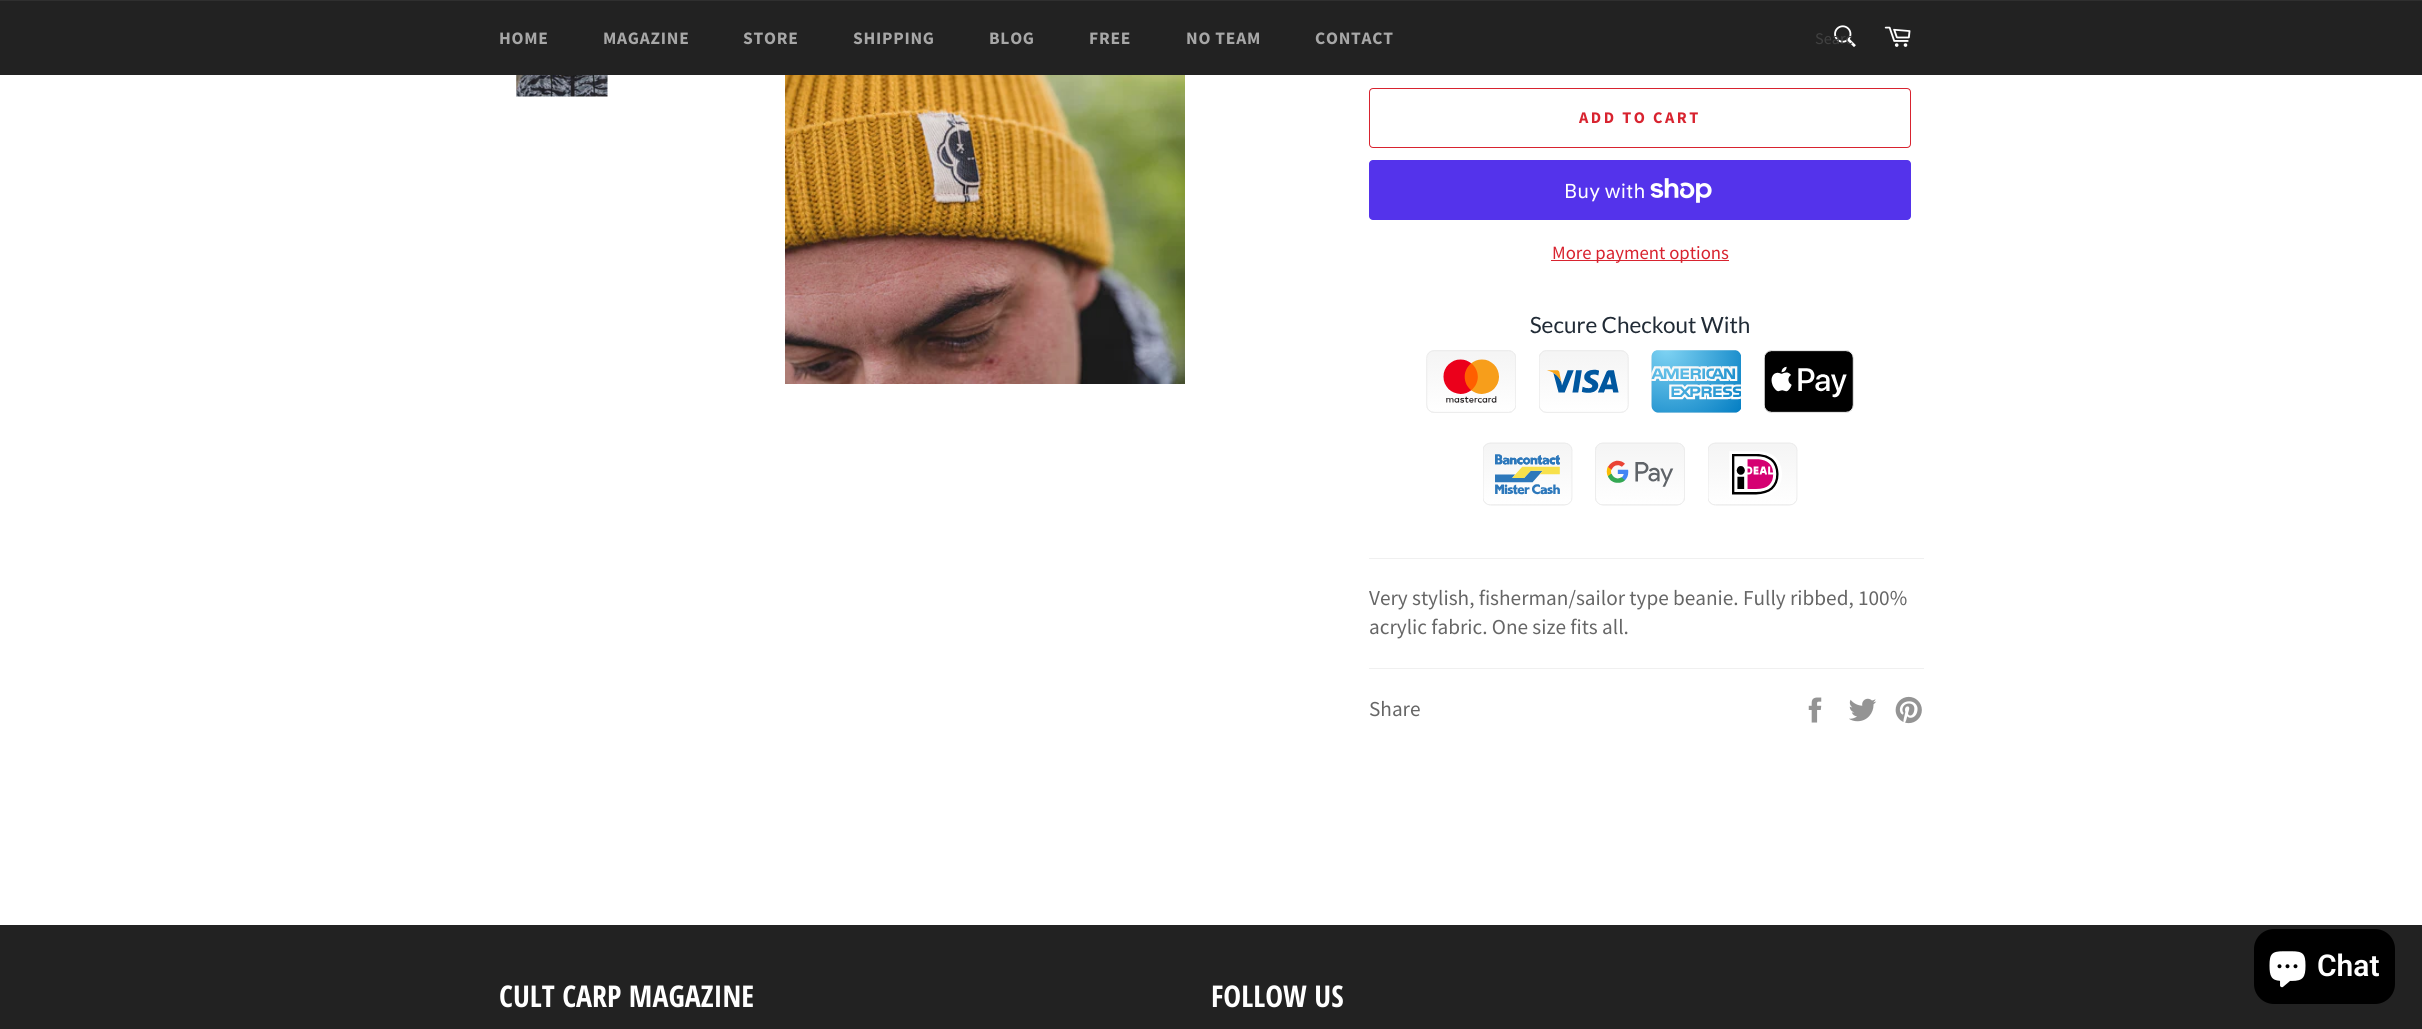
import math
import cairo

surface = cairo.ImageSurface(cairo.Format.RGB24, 2422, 1029)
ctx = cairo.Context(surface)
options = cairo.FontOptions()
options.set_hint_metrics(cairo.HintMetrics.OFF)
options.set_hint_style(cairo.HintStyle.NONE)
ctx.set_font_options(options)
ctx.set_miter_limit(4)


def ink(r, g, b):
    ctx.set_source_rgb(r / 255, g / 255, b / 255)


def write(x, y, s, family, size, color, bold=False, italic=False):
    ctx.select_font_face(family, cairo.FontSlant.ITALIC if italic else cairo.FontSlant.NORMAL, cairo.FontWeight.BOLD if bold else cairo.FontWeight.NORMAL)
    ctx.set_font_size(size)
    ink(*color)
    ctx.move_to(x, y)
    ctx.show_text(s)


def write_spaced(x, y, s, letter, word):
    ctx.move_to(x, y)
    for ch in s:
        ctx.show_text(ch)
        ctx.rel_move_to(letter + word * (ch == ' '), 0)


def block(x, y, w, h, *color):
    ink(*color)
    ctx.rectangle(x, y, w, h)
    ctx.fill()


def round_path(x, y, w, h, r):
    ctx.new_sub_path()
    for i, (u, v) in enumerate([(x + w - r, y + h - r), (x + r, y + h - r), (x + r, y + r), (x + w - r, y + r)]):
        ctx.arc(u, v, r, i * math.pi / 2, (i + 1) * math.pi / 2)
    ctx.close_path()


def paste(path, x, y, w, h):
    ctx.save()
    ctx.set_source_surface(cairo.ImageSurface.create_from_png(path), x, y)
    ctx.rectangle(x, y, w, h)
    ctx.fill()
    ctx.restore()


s1 = dict(family="Source Sans Pro", size=16.25, color=(65, 65, 65))
s2 = dict(family="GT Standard", size=20, color=(255, 255, 255))
s3 = dict(family="Source Sans Pro", size=18.75, color=(216, 35, 47))
s4 = dict(family="Source Sans Pro", size=21.25, color=(102, 102, 102))
s5 = dict(family="Open Sans Condensed", size=30, color=(255, 255, 255), bold=True)
s6 = dict(family="Roboto SemiBold", size=30, color=(255, 255, 255))

ink(255, 255, 255)
ctx.paint()
block(0, 1, 2422, 74, 34, 34, 34)
block(0, 0, 2422, 1, 47, 47, 47)
ctx.select_font_face("Source Sans Pro", cairo.FontSlant.NORMAL, cairo.FontWeight.BOLD)
ctx.set_font_size(17.5)
ink(167, 167, 167)
write_spaced(499, 44, "HOME", 0.75, 0)
write_spaced(603, 44, "MAGAZINE", 0.75, 0)
write_spaced(743, 44, "STORE", 0.75, 0)
write_spaced(853, 44, "SHIPPING", 0.75, 0)
write_spaced(989, 44, "BLOG", 0.75, 0)
write_spaced(1089, 44, "FREE", 0.75, 0)
write_spaced(1186, 44, "NO TEAM", 0.75, 0)
write_spaced(1315, 44, "CONTACT", 0.75, 0)
paste("pic1.png", 1834, 25, 22, 22)
write(1815, 44, "Searc", **s1)
paste("pic2.png", 1884, 26, 27, 21)
paste("pic3.png", 516, 75, 92, 22)
paste("pic4.png", 785, 75, 400, 309)
round_path(1369.5, 88.5, 541, 59, 3.5)
ink(216, 35, 47)
ctx.set_line_width(1)
ctx.stroke()
ctx.select_font_face("Source Sans Pro", cairo.FontSlant.NORMAL, cairo.FontWeight.BOLD)
write_spaced(1579, 123, "ADD TO CART", 2.5, 0)
ink(84, 51, 235)
round_path(1369, 160, 542, 60, 4)
ctx.fill()
write(1564, 198, "Buy with", **s2)
paste("pic5.png", 1650, 178, 62, 25)
block(1551, 260, 178, 1, 216, 35, 47)
write(1552, 259, "More payment options", **s3)
paste("pic6.png", 1426, 316, 428, 190)
block(1369, 558, 555, 1, 240, 240, 240)
write(1369, 605, "Very stylish, fisherman/sailor type beanie. Fully ribbed, 100%", **s4)
write(1369, 634, "acrylic fabric. One size fits all.", **s4)
block(1369, 668, 555, 1, 240, 240, 240)
write(1369, 716, "Share", **s4)
paste("pic7.png", 1808, 697, 14, 26)
paste("pic8.png", 1849, 698, 28, 24)
paste("pic9.png", 1895, 696, 27, 28)
block(0, 925, 2422, 104, 34, 34, 34)
write(499, 1007, "CULT CARP MAGAZINE", **s5)
write(1211, 1007, "FOLLOW US", **s5)
ink(0, 0, 0)
round_path(2254, 929, 141, 75, 20)
ctx.fill()
paste("pic10.png", 2269, 951, 37, 37)
write(2317, 976, "Chat", **s6)
surface.write_to_png("screenshot.png")
